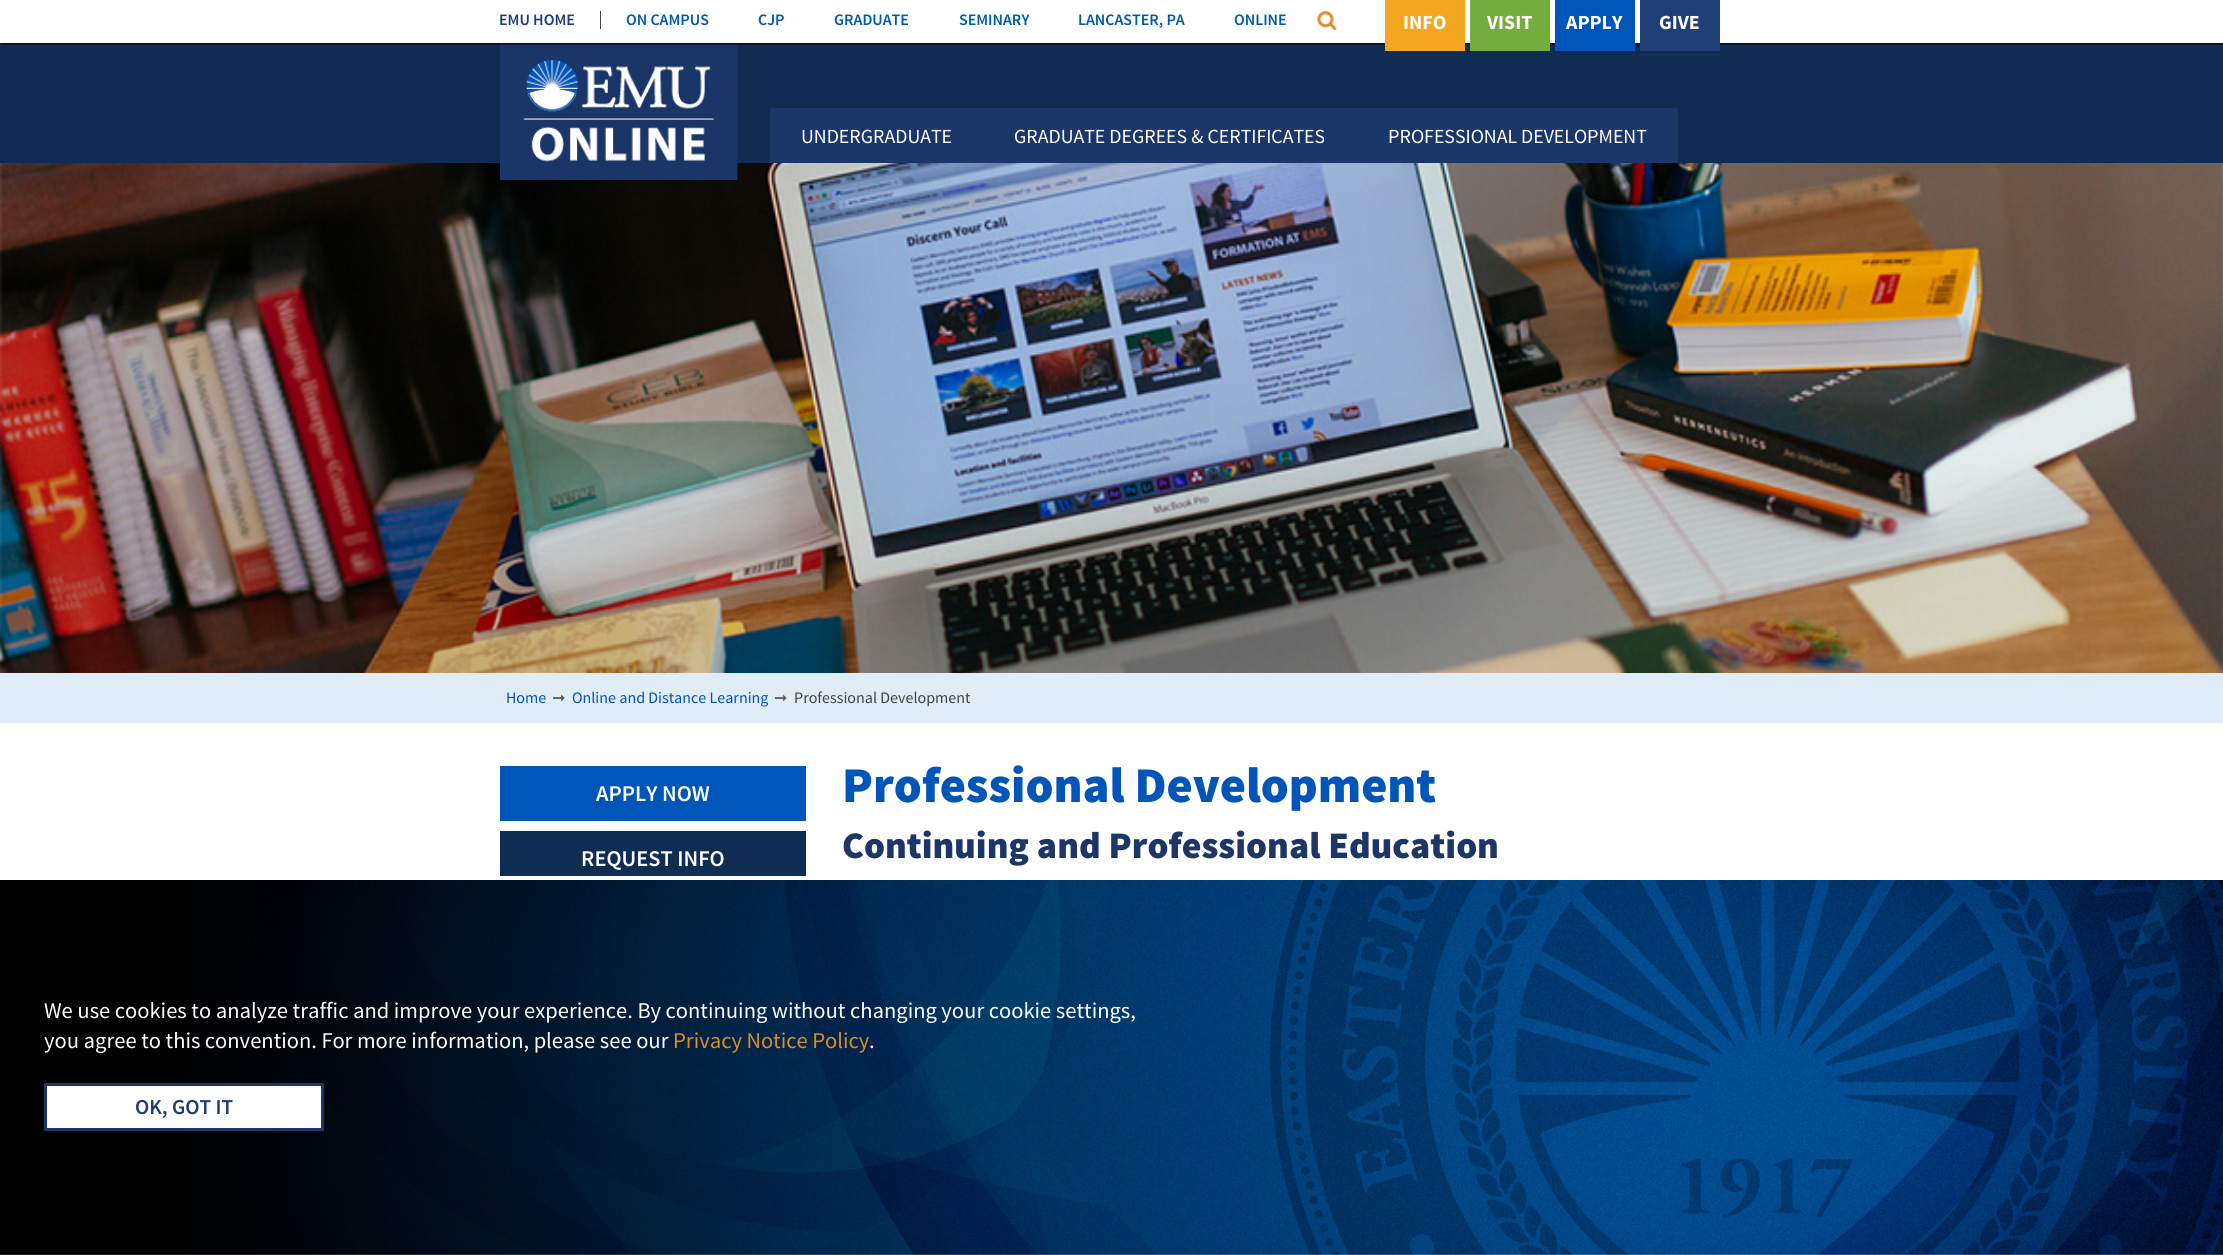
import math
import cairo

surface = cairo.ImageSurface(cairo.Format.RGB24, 2223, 1255)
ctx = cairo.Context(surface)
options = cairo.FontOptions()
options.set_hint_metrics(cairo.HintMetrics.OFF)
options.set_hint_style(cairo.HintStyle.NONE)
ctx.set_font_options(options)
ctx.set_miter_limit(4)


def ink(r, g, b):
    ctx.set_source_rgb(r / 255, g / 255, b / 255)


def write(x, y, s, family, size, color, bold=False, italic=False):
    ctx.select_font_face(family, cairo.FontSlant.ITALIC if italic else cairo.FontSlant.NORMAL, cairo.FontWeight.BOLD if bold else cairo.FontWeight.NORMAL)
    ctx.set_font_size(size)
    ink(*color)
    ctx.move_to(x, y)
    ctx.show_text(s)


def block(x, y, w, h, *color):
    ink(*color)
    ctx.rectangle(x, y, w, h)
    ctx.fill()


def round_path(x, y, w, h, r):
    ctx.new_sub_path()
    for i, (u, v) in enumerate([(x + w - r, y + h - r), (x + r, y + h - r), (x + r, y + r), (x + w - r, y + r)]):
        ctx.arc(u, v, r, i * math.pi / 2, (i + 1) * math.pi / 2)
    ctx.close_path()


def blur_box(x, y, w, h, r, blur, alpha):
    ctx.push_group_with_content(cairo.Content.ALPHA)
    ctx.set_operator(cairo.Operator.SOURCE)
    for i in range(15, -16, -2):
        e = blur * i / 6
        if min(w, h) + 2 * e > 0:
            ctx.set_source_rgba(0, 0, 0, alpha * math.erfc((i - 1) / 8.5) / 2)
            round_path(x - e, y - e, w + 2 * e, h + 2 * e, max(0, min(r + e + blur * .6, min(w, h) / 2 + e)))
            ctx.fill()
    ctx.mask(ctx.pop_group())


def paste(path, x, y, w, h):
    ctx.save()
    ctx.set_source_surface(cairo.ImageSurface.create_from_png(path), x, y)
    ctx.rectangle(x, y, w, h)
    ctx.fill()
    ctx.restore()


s1 = dict(family="Source Sans Pro SemiBold", size=16, color=(30, 61, 120))
s2 = dict(family="Source Sans Pro SemiBold", size=16, color=(0, 90, 170))
s3 = dict(family="Source Sans Pro", size=20, color=(255, 255, 255), bold=True)
s4 = dict(family="Source Sans Pro", size=20, color=(255, 255, 255))
s5 = dict(family="Source Sans Pro", size=16, color=(0, 86, 184))
s6 = dict(family="DejaVu Sans", size=16, color=(85, 85, 85))
s7 = dict(family="Source Sans Pro", size=16, color=(68, 68, 68))
s8 = dict(family="Source Sans Pro SemiBold", size=22.5, color=(255, 255, 255))
s9 = dict(family="Source Sans Pro Black", size=50, color=(0, 86, 184))
s10 = dict(family="Source Sans Pro Black", size=37.5, color=(28, 55, 103))
s11 = dict(family="Source Sans Pro", size=22.5, color=(255, 255, 255))
s12 = dict(family="Source Sans Pro", size=22.5, color=(221, 139, 39))
s13 = dict(family="Source Sans Pro SemiBold", size=21.25, color=(30, 61, 120))

ink(255, 255, 255)
ctx.paint()
block(0, 43, 2223, 120, 16, 44, 82)
paste("pic3.png", 0, 163, 2223, 510)
paste("pic2.png", 500, 43, 238, 137)
ink(0, 0, 0)
blur_box(1, 1, 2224, 43, 0, 1, 1)
block(0, 0, 2223, 43, 255, 255, 255)
block(600, 11, 1, 18, 68, 68, 68)
write(499, 25, "EMU HOME", **s1)
write(626, 25, "ON CAMPUS", **s2)
write(758, 25, "CJP", **s2)
write(834, 25, "GRADUATE", **s2)
write(959, 25, "SEMINARY", **s2)
write(1078, 25, "LANCASTER, PA", **s2)
write(1234, 25, "ONLINE", **s2)
paste("pic1.png", 1317, 11, 20, 19)
block(1385, 0, 80, 51, 243, 167, 30)
write(1403, 29, "INFO", **s3)
block(1470, 0, 80, 51, 116, 173, 60)
write(1487, 29, "VISIT", **s3)
block(1555, 0, 80, 51, 0, 86, 184)
write(1566, 29, "APPLY", **s3)
block(1640, 0, 80, 51, 32, 63, 119)
write(1659, 29, "GIVE", **s3)
block(770, 108, 908, 55, 27, 54, 104)
write(801, 143, "UNDERGRADUATE", **s4)
write(1014, 143, "GRADUATE DEGREES & CERTIFICATES", **s4)
write(1388, 143, "PROFESSIONAL DEVELOPMENT", **s4)
block(0, 673, 2223, 50, 224, 237, 247)
write(506, 703, "Home", **s5)
write(552, 703, "➞", **s6)
write(572, 703, "Online and Distance Learning", **s5)
write(774, 703, "➞", **s6)
write(794, 703, "Professional Development", **s7)
block(500, 766, 306, 55, 0, 86, 184)
write(596, 801, "APPLY NOW", **s8)
block(500, 831, 306, 45, 15, 44, 82)
write(581, 866, "REQUEST INFO", **s8)
write(842, 802, "Professional Development", **s9)
write(842, 858, "Continuing and Professional Education", **s10)
paste("pic4.png", 0, 880, 2223, 375)
write(44, 1018, "We use cookies to analyze traffic and improve your experience. By continuing without changing your cookie settings,", **s11)
write(44, 1048, "you agree to this convention. For more information, please see our", **s11)
write(673, 1048, "Privacy Notice Policy", **s12)
write(869, 1048, ".", **s11)
ctx.rectangle(45.5, 1084.5, 277, 45)
ctx.fill_preserve()
ink(28, 55, 103)
ctx.set_line_width(3)
ctx.stroke()
write(135, 1114, "OK, GOT IT", **s13)
surface.write_to_png("screenshot.png")
